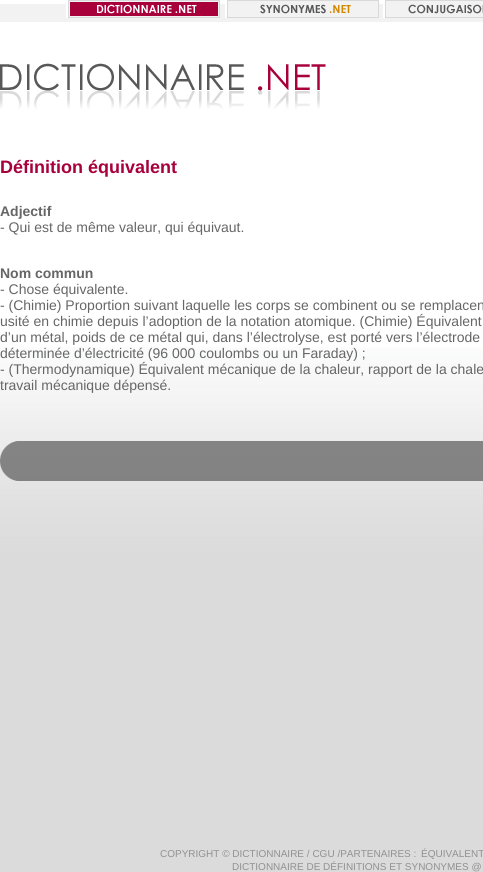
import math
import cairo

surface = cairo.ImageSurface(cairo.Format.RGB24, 483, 872)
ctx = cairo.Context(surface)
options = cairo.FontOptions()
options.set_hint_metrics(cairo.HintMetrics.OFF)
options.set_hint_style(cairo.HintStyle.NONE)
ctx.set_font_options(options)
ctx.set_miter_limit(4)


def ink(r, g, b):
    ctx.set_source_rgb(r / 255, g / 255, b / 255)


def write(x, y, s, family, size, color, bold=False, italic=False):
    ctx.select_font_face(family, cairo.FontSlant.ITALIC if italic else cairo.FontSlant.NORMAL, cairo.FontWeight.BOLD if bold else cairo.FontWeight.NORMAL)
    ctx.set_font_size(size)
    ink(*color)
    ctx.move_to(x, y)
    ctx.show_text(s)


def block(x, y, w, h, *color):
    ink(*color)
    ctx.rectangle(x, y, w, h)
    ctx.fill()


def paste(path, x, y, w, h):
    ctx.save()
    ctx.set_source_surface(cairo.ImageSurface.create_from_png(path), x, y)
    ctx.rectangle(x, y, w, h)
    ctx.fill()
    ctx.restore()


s1 = dict(family="Liberation Sans", size=18, color=(168, 0, 59), bold=True)
s2 = dict(family="Liberation Sans", size=14, color=(102, 102, 102), bold=True)
s3 = dict(family="Liberation Sans", size=14, color=(102, 102, 102))
s4 = dict(family="Liberation Sans", size=10, color=(145, 145, 145))

ink(255, 255, 255)
ctx.paint()
paste("pic1.png", 0, 347, 483, 525)
block(0, 4, 483, 18, 242, 242, 242)
paste("pic2.png", 66, 0, 154, 18)
paste("pic3.png", 225, 0, 154, 18)
paste("pic4.png", 383, 0, 100, 18)
paste("pic5.png", 0, 63, 326, 46)
write(0, 173, "Définition équivalent", **s1)
write(0, 216, "Adjectif", **s2)
write(0, 232, "- Qui est de même valeur, qui équivaut.", **s3)
write(0, 278, "Nom commun", **s2)
write(0, 294, "- Chose équivalente.", **s3)
write(0, 310, "- (Chimie) Proportion suivant laquelle les corps se combinent ou se remplacen", **s3)
write(0, 326, "usité en chimie depuis l’adoption de la notation atomique. (Chimie) Équivalent", **s3)
write(0, 342, "d’un métal, poids de ce métal qui, dans l’électrolyse, est porté vers l’électrode", **s3)
write(0, 358, "déterminée d’électricité (96 000 coulombs ou un Faraday) ;", **s3)
write(0, 374, "- (Thermodynamique) Équivalent mécanique de la chaleur, rapport de la chale", **s3)
write(0, 390, "travail mécanique dépensé.", **s3)
paste("pic6.png", 0, 441, 483, 40)
write(160, 857, "COPYRIGHT © DICTIONNAIRE / CGU /PARTENAIRES :", **s4)
write(421, 857, "ÉQUIVALENT", **s4)
write(232, 870, "DICTIONNAIRE DE DÉFINITIONS ET SYNONYMES @", **s4)
surface.write_to_png("screenshot.png")
